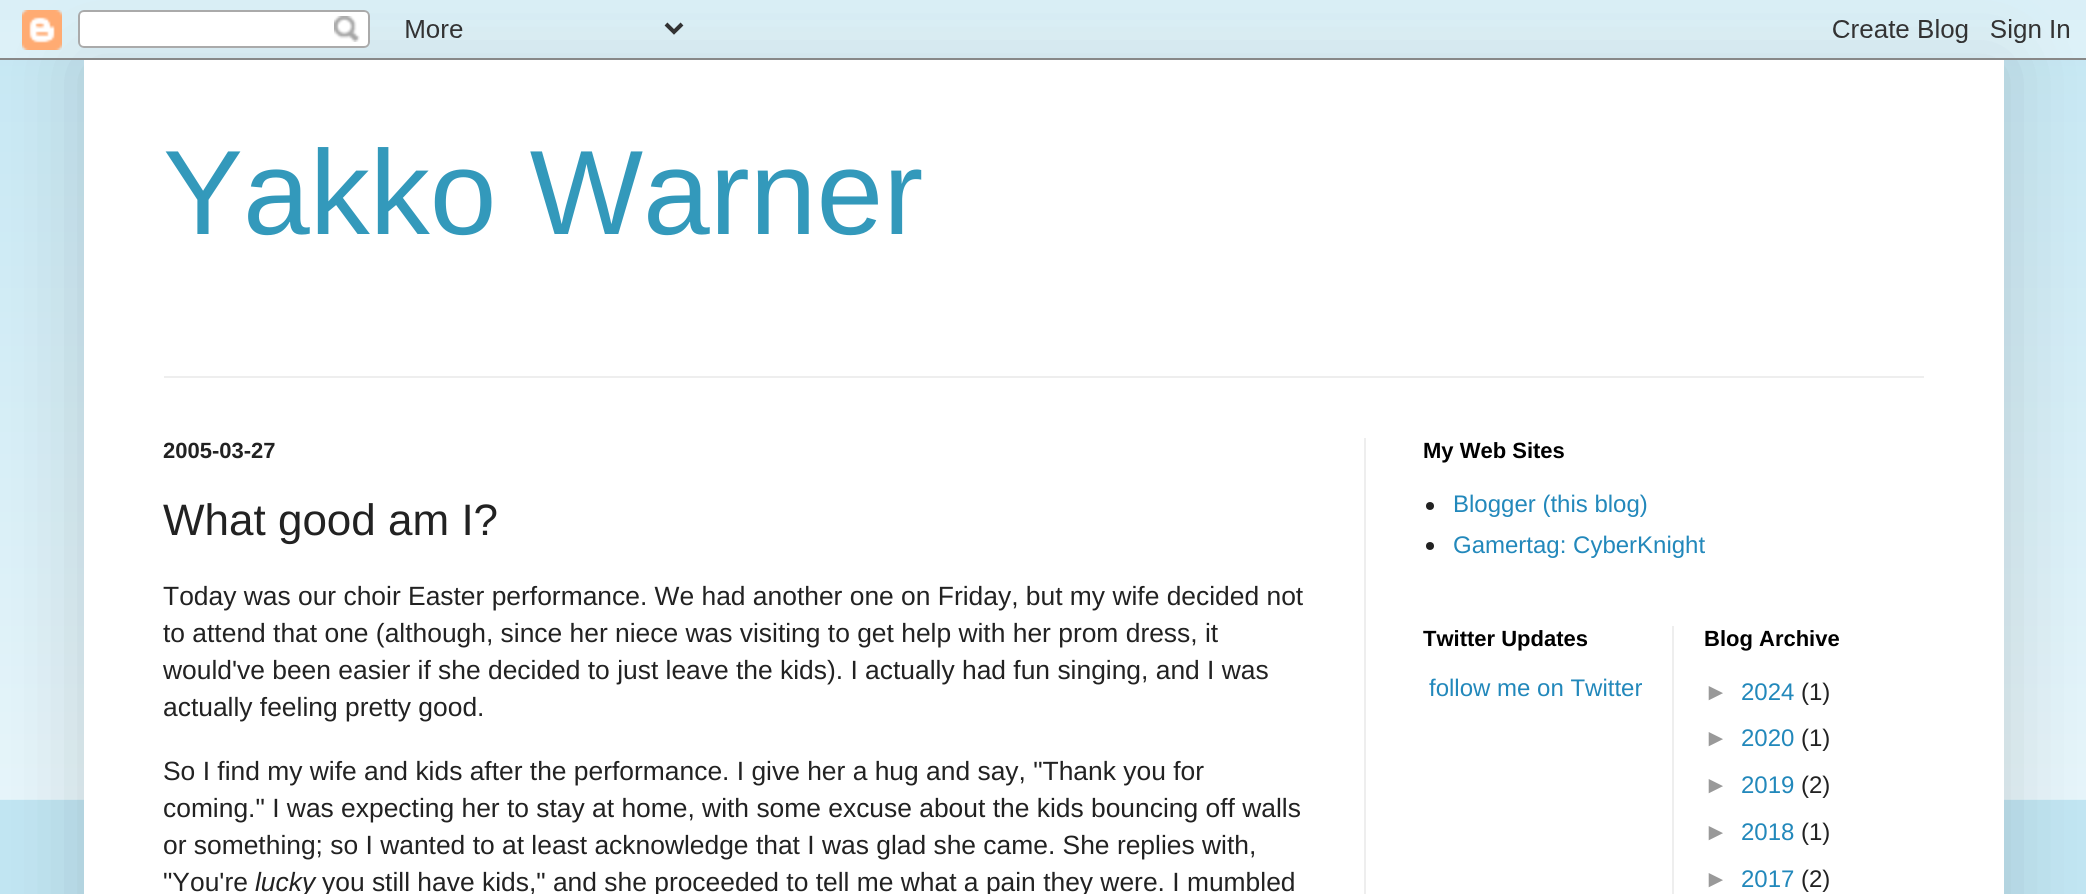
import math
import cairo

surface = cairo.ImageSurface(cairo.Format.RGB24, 2086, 894)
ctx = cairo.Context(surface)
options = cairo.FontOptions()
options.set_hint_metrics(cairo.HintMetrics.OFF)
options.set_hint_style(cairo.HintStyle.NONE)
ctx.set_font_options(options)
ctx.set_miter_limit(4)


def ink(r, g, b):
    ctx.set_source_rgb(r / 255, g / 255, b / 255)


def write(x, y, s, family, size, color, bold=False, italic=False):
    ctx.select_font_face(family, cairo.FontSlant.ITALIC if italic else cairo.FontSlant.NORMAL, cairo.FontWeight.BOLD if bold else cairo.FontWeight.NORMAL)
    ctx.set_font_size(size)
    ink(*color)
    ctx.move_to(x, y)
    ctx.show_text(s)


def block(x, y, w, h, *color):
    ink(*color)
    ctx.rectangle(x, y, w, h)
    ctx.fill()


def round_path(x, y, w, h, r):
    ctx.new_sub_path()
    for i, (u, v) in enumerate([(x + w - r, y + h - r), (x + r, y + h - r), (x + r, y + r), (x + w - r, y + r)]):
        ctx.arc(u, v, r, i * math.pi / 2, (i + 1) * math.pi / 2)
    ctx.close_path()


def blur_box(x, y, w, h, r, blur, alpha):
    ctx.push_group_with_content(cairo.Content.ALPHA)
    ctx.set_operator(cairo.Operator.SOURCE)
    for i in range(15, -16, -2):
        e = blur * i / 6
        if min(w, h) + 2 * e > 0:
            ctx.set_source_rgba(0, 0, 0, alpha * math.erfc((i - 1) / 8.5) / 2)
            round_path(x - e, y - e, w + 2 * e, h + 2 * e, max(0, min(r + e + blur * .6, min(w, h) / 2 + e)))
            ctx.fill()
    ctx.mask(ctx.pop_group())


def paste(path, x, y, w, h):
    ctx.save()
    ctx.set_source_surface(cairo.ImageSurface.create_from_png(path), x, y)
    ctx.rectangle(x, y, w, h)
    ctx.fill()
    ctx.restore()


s1 = dict(family="Liberation Sans", size=120, color=(51, 153, 187))
s2 = dict(family="Liberation Sans", size=22, color=(34, 34, 34), bold=True)
s3 = dict(family="Liberation Sans", size=44, color=(34, 34, 34))
s4 = dict(family="Liberation Sans", size=26.4, color=(34, 34, 34))
s5 = dict(family="Liberation Sans", size=26.4, color=(34, 34, 34), italic=True)
s6 = dict(family="Liberation Sans", size=22, color=(0, 0, 0), bold=True)
s7 = dict(family="Liberation Sans", size=24, color=(34, 136, 187))
s8 = dict(family="Liberation Sans", size=24, color=(153, 153, 153))
s9 = dict(family="Liberation Sans", size=24, color=(34, 34, 34))

ink(193, 229, 242)
ctx.paint()
paste("pic2.png", 0, 20, 2086, 780)
ink(0, 0, 0)
blur_box(84, 60, 1920, 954, 0, 40, 0.15)
paste("pic1.png", 0, 0, 2086, 60)
block(84, 60, 1920, 834, 255, 255, 255)
write(163, 234, "Yakko Warner", **s1)
block(164, 376, 1760, 2, 238, 238, 238)
block(1364, 438, 2, 456, 238, 238, 238)
write(163, 458, "2005-03-27", **s2)
write(163, 535, "What good am I?", **s3)
write(163, 605, "Today was our choir Easter performance. We had another one on Friday, but my wife decided not", **s4)
write(163, 642, "to attend that one (although, since her niece was visiting to get help with her prom dress, it", **s4)
write(163, 679, "would've been easier if she decided to just leave the kids). I actually had fun singing, and I was", **s4)
write(163, 716, "actually feeling pretty good.", **s4)
write(163, 780, "So I find my wife and kids after the performance. I give her a hug and say, \"Thank you for", **s4)
write(163, 817, "coming.\" I was expecting her to stay at home, with some excuse about the kids bouncing off walls", **s4)
write(163, 854, "or something; so I wanted to at least acknowledge that I was glad she came. She replies with,", **s4)
write(163, 891, "\"You're", **s4)
write(255, 891, "lucky", **s5)
write(322, 891, "you still have kids,\" and she proceeded to tell me what a pain they were. I mumbled", **s4)
write(1423, 458, "My Web Sites", **s6)
ink(34, 34, 34)
ctx.new_path()
ctx.arc(1430, 506, 4, 0, 2 * math.pi)
ctx.fill()
write(1453, 512, "Blogger (this blog)", **s7)
ink(34, 34, 34)
ctx.new_path()
ctx.arc(1430, 546, 4, 0, 2 * math.pi)
ctx.fill()
write(1453, 553, "Gamertag: CyberKnight", **s7)
write(1423, 646, "Twitter Updates", **s6)
write(1429, 696, "follow me on Twitter", **s7)
block(1672, 626, 2, 268, 238, 238, 238)
write(1704, 646, "Blog Archive", **s6)
write(1704, 700, "►", **s8)
write(1741, 700, "2024", **s7)
write(1801, 700, "(1)", **s9)
write(1704, 746, "►", **s8)
write(1741, 746, "2020", **s7)
write(1801, 746, "(1)", **s9)
write(1704, 793, "►", **s8)
write(1741, 793, "2019", **s7)
write(1801, 793, "(2)", **s9)
write(1704, 840, "►", **s8)
write(1741, 840, "2018", **s7)
write(1801, 840, "(1)", **s9)
write(1704, 887, "►", **s8)
write(1741, 887, "2017", **s7)
write(1801, 887, "(2)", **s9)
surface.write_to_png("screenshot.png")
